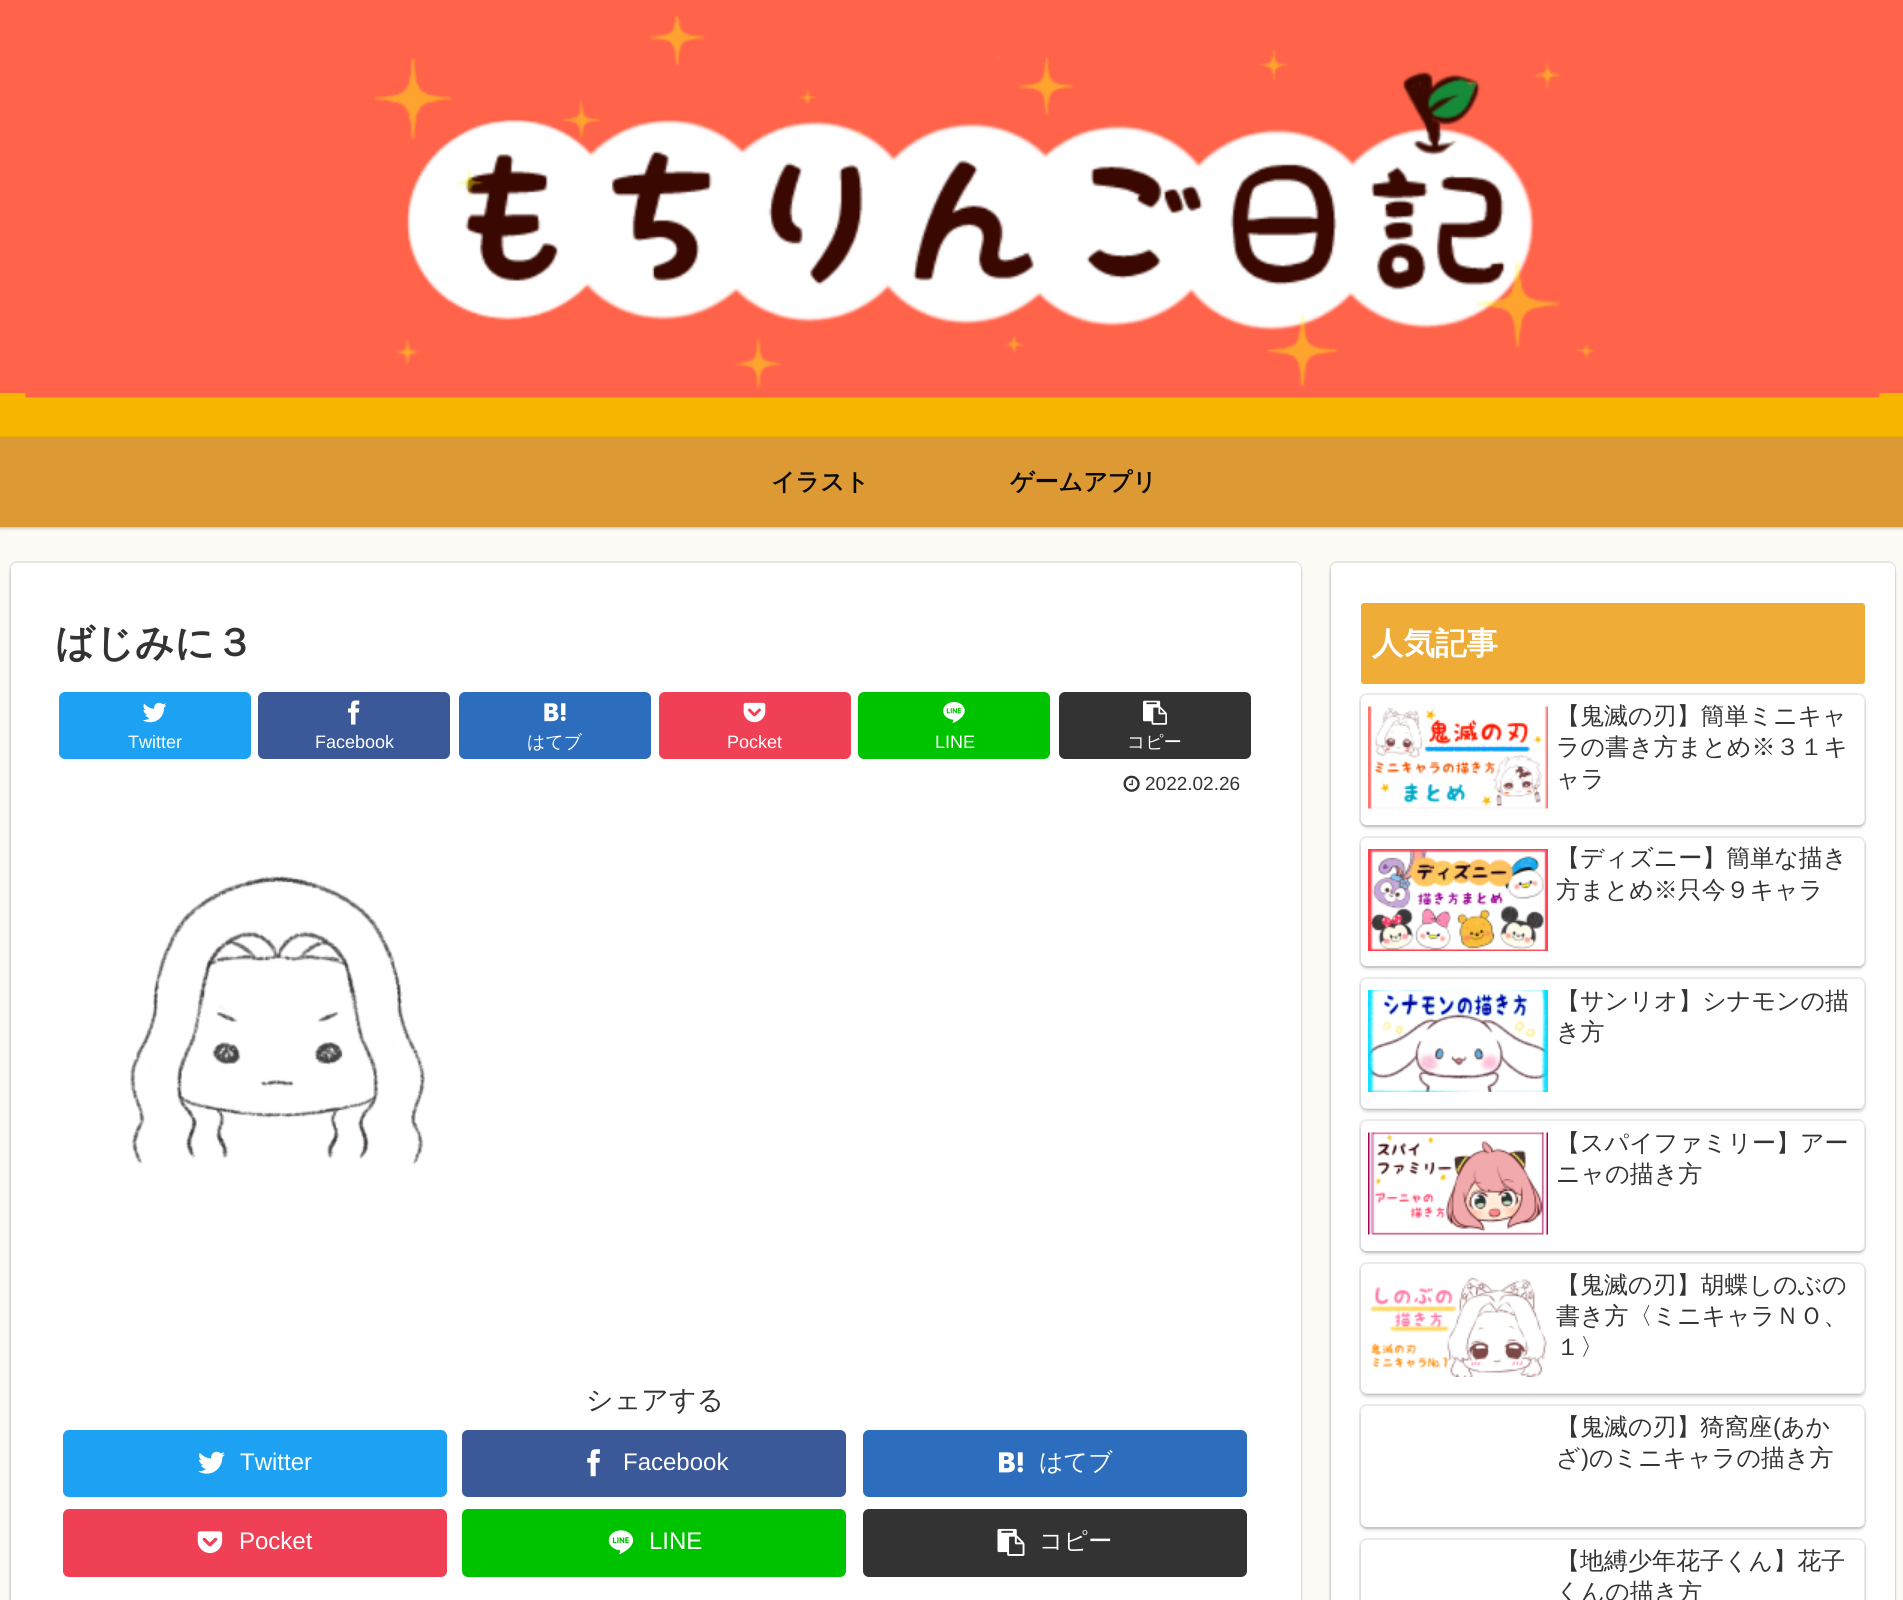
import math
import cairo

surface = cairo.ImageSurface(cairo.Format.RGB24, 1903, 1600)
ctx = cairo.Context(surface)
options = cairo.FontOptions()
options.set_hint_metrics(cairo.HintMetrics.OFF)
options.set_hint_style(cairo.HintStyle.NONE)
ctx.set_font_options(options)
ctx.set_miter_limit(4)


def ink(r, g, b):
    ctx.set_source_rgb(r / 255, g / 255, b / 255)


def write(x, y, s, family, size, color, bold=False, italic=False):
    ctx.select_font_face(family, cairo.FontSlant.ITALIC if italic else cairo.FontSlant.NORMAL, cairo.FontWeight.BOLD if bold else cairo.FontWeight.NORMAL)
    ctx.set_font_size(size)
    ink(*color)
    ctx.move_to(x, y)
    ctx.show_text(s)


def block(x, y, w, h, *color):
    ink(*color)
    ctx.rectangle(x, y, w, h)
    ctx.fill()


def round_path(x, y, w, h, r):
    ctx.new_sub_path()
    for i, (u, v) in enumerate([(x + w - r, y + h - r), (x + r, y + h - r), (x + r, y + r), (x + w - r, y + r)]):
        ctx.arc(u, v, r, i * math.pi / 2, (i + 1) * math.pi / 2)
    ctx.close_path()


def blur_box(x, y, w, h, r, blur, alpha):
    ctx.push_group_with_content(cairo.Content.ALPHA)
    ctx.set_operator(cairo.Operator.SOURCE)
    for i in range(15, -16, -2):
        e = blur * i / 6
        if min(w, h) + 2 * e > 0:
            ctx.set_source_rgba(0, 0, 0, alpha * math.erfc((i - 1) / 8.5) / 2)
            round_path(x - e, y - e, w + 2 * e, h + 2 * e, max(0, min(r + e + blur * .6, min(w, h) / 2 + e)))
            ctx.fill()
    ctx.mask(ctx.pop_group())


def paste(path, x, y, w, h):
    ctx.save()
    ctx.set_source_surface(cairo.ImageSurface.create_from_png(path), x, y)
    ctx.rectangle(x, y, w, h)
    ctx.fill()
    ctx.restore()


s1 = dict(family="WenQuanYi Zen Hei", size=24, color=(10, 10, 10), bold=True)
s2 = dict(family="WenQuanYi Zen Hei", size=39, color=(51, 51, 51), bold=True)
s3 = dict(family="Liberation Sans", size=18, color=(255, 255, 255))
s4 = dict(family="WenQuanYi Zen Hei Medium", size=18, color=(255, 255, 255))
s5 = dict(family="Liberation Sans", size=19, color=(51, 51, 51))
s6 = dict(family="WenQuanYi Zen Hei Medium", size=27, color=(51, 51, 51))
s7 = dict(family="Liberation Sans", size=24, color=(255, 255, 255))
s8 = dict(family="WenQuanYi Zen Hei Medium", size=24, color=(255, 255, 255))
s9 = dict(family="WenQuanYi Zen Hei", size=31.5, color=(255, 255, 255), bold=True)
s10 = dict(family="WenQuanYi Zen Hei Medium", size=24, color=(51, 51, 51))
s11 = dict(family="Liberation Sans", size=24, color=(51, 51, 51))

ink(251, 250, 245)
ctx.paint()
block(0, 393, 1903, 44, 248, 181, 0)
paste("pic1.png", 0, 0, 1903, 393)
paste("pic2.png", 25, 16, 1855, 382)
ink(0, 0, 0)
blur_box(0, 438, 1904, 90, 0, 2, 0.25)
block(0, 437, 1903, 90, 221, 153, 51)
write(771, 490, "イラスト", **s1)
write(1010, 490, "ゲームアプリ", **s1)
round_path(10, 562, 1291, 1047, 7)
ink(231, 230, 225)
ctx.stroke()
ink(0, 0, 0)
blur_box(11, 566, 1290, 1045, 6, 1.5, 0.16)
ink(255, 255, 255)
round_path(11, 563, 1290, 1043, 6)
ctx.fill()
write(55, 656, "ばじみに３", **s2)
ink(29, 161, 242)
round_path(59, 692, 192, 67, 6)
ctx.fill()
paste("pic3.png", 142, 702, 25, 21)
write(128, 748, "Twitter", **s3)
ink(59, 89, 152)
round_path(258, 692, 192, 67, 6)
ctx.fill()
paste("pic4.png", 348, 700, 12, 25)
write(315, 748, "Facebook", **s3)
ink(44, 110, 189)
round_path(459, 692, 192, 67, 6)
ctx.fill()
paste("pic5.png", 544, 703, 22, 19)
write(527, 748, "はてブ", **s4)
ink(239, 64, 86)
round_path(659, 692, 192, 67, 6)
ctx.fill()
paste("pic6.png", 743, 702, 23, 21)
write(727, 748, "Pocket", **s3)
ink(0, 195, 0)
round_path(858, 692, 192, 67, 6)
ctx.fill()
paste("pic7.png", 943, 702, 22, 21)
write(935, 748, "LINE", **s3)
ink(51, 51, 51)
round_path(1059, 692, 192, 67, 6)
ctx.fill()
paste("pic8.png", 1143, 700, 24, 25)
write(1127, 748, "コピー", **s4)
paste("pic9.png", 1123, 775, 17, 17)
write(1145, 790, "2022.02.26", **s5)
paste("pic10.png", 129, 875, 297, 290)
write(586, 1409, "シェアする", **s6)
ink(29, 161, 242)
round_path(63, 1430, 384, 67, 6)
ctx.fill()
paste("pic11.png", 198, 1451, 27, 23)
write(240, 1470, "Twitter", **s7)
ink(59, 89, 152)
round_path(462, 1430, 384, 67, 6)
ctx.fill()
paste("pic12.png", 587, 1449, 13, 28)
write(623, 1470, "Facebook", **s7)
ink(44, 110, 189)
round_path(863, 1430, 384, 67, 6)
ctx.fill()
paste("pic13.png", 999, 1452, 24, 21)
write(1039, 1470, "はてブ", **s8)
ink(239, 64, 86)
round_path(63, 1509, 384, 68, 6)
ctx.fill()
paste("pic14.png", 197, 1531, 26, 23)
write(239, 1549, "Pocket", **s7)
ink(0, 195, 0)
round_path(462, 1509, 384, 68, 6)
ctx.fill()
paste("pic15.png", 608, 1530, 26, 25)
write(649, 1549, "LINE", **s7)
ink(51, 51, 51)
round_path(863, 1509, 384, 68, 6)
ctx.fill()
paste("pic16.png", 997, 1528, 28, 28)
write(1039, 1549, "コピー", **s8)
round_path(1330, 562, 565, 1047, 7)
ink(231, 230, 225)
ctx.stroke()
ink(0, 0, 0)
blur_box(1331, 566, 564, 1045, 6, 1.5, 0.16)
ink(255, 255, 255)
round_path(1331, 563, 564, 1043, 6)
ctx.fill()
ink(239, 172, 55)
round_path(1361, 603, 504, 81, 3)
ctx.fill()
write(1372, 654, "人気記事", **s9)
round_path(1360, 694, 505, 132, 7)
ink(235, 235, 235)
ctx.stroke()
ctx.save()
ctx.set_fill_rule(cairo.FillRule.EVEN_ODD)
ctx.new_path()
ctx.move_to(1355, 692)
ctx.line_to(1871, 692)
ctx.line_to(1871, 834)
ctx.line_to(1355, 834)
ctx.close_path()
ctx.move_to(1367, 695)
ctx.line_to(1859, 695)
ctx.curve_to(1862.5, 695, 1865, 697.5, 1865, 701)
ctx.line_to(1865, 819)
ctx.curve_to(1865, 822.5, 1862.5, 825, 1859, 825)
ctx.line_to(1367, 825)
ctx.curve_to(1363.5, 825, 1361, 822.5, 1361, 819)
ctx.line_to(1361, 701)
ctx.curve_to(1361, 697.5, 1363.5, 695, 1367, 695)
ctx.close_path()
ctx.clip()
ink(0, 0, 0)
blur_box(1361, 698, 504, 130, 6, 1.5, 0.16)
ctx.restore()
paste("pic17.png", 1368, 706, 180, 103)
write(1556, 724, "【鬼滅の刃】簡単ミニキャ", **s10)
write(1556, 755, "ラの書き方まとめ※３１キ", **s10)
write(1556, 787, "ャラ", **s10)
round_path(1360, 837, 505, 130, 7)
ink(235, 235, 235)
ctx.stroke()
ctx.save()
ctx.set_fill_rule(cairo.FillRule.EVEN_ODD)
ctx.new_path()
ctx.move_to(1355, 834)
ctx.line_to(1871, 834)
ctx.line_to(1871, 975)
ctx.line_to(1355, 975)
ctx.close_path()
ctx.move_to(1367, 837)
ctx.line_to(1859, 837)
ctx.curve_to(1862.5, 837, 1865, 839.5, 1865, 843)
ctx.line_to(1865, 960)
ctx.curve_to(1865, 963.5, 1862.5, 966, 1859, 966)
ctx.line_to(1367, 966)
ctx.curve_to(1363.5, 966, 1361, 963.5, 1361, 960)
ctx.line_to(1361, 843)
ctx.curve_to(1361, 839.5, 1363.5, 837, 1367, 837)
ctx.close_path()
ctx.clip()
ink(0, 0, 0)
blur_box(1361, 840, 504, 129, 6, 1.5, 0.16)
ctx.restore()
paste("pic18.png", 1368, 849, 180, 102)
write(1556, 866, "【ディズニー】簡単な描き", **s10)
write(1556, 898, "方まとめ※只今９キャラ", **s10)
round_path(1360, 978, 505, 131, 7)
ink(235, 235, 235)
ctx.stroke()
ctx.save()
ctx.set_fill_rule(cairo.FillRule.EVEN_ODD)
ctx.new_path()
ctx.move_to(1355, 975)
ctx.line_to(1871, 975)
ctx.line_to(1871, 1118)
ctx.line_to(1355, 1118)
ctx.close_path()
ctx.move_to(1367, 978)
ctx.line_to(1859, 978)
ctx.curve_to(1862.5, 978, 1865, 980.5, 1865, 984)
ctx.line_to(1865, 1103)
ctx.curve_to(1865, 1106.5, 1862.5, 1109, 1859, 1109)
ctx.line_to(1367, 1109)
ctx.curve_to(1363.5, 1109, 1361, 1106.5, 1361, 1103)
ctx.line_to(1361, 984)
ctx.curve_to(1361, 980.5, 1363.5, 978, 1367, 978)
ctx.close_path()
ctx.clip()
ink(0, 0, 0)
blur_box(1361, 981, 504, 131, 6, 1.5, 0.16)
ctx.restore()
paste("pic19.png", 1368, 990, 180, 102)
write(1556, 1009, "【サンリオ】シナモンの描", **s10)
write(1556, 1040, "き方", **s10)
round_path(1360, 1120, 505, 132, 7)
ink(235, 235, 235)
ctx.stroke()
ctx.save()
ctx.set_fill_rule(cairo.FillRule.EVEN_ODD)
ctx.new_path()
ctx.move_to(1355, 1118)
ctx.line_to(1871, 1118)
ctx.line_to(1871, 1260)
ctx.line_to(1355, 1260)
ctx.close_path()
ctx.move_to(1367, 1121)
ctx.line_to(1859, 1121)
ctx.curve_to(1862.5, 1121, 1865, 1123.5, 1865, 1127)
ctx.line_to(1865, 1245)
ctx.curve_to(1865, 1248.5, 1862.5, 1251, 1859, 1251)
ctx.line_to(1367, 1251)
ctx.curve_to(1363.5, 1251, 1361, 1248.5, 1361, 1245)
ctx.line_to(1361, 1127)
ctx.curve_to(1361, 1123.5, 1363.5, 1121, 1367, 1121)
ctx.close_path()
ctx.clip()
ink(0, 0, 0)
blur_box(1361, 1124, 504, 130, 6, 1.5, 0.16)
ctx.restore()
paste("pic20.png", 1368, 1132, 180, 103)
write(1556, 1151, "【スパイファミリー】アー", **s10)
write(1556, 1182, "ニャの描き方", **s10)
round_path(1360, 1263, 505, 131, 7)
ink(235, 235, 235)
ctx.stroke()
ctx.save()
ctx.set_fill_rule(cairo.FillRule.EVEN_ODD)
ctx.new_path()
ctx.move_to(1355, 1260)
ctx.line_to(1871, 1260)
ctx.line_to(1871, 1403)
ctx.line_to(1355, 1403)
ctx.close_path()
ctx.move_to(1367, 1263)
ctx.line_to(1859, 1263)
ctx.curve_to(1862.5, 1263, 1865, 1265.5, 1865, 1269)
ctx.line_to(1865, 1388)
ctx.curve_to(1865, 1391.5, 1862.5, 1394, 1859, 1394)
ctx.line_to(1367, 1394)
ctx.curve_to(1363.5, 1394, 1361, 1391.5, 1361, 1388)
ctx.line_to(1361, 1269)
ctx.curve_to(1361, 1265.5, 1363.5, 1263, 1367, 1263)
ctx.close_path()
ctx.clip()
ink(0, 0, 0)
blur_box(1361, 1266, 504, 131, 6, 1.5, 0.16)
ctx.restore()
paste("pic21.png", 1369, 1277, 178, 100)
write(1556, 1293, "【鬼滅の刃】胡蝶しのぶの", **s10)
write(1556, 1324, "書き方〈ミニキャラＮＯ、", **s10)
write(1556, 1355, "１〉", **s10)
round_path(1360, 1405, 505, 123, 7)
ink(235, 235, 235)
ctx.stroke()
ctx.save()
ctx.set_fill_rule(cairo.FillRule.EVEN_ODD)
ctx.new_path()
ctx.move_to(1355, 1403)
ctx.line_to(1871, 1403)
ctx.line_to(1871, 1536)
ctx.line_to(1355, 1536)
ctx.close_path()
ctx.move_to(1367, 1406)
ctx.line_to(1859, 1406)
ctx.curve_to(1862.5, 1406, 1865, 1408.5, 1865, 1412)
ctx.line_to(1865, 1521)
ctx.curve_to(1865, 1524.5, 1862.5, 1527, 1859, 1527)
ctx.line_to(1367, 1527)
ctx.curve_to(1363.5, 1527, 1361, 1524.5, 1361, 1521)
ctx.line_to(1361, 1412)
ctx.curve_to(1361, 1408.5, 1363.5, 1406, 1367, 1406)
ctx.close_path()
ctx.clip()
ink(0, 0, 0)
blur_box(1361, 1409, 504, 121, 6, 1.5, 0.16)
ctx.restore()
write(1556, 1435, "【鬼滅の刃】猗窩座", **s10)
write(1773, 1435, "(", **s11)
write(1781, 1435, "あか", **s10)
write(1556, 1466, "ざ", **s10)
write(1581, 1466, ")", **s11)
write(1589, 1466, "のミニキャラの描き方", **s10)
round_path(1360, 1539, 505, 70, 7)
ink(235, 235, 235)
ctx.stroke()
ctx.save()
ctx.set_fill_rule(cairo.FillRule.EVEN_ODD)
ctx.new_path()
ctx.move_to(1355, 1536)
ctx.line_to(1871, 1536)
ctx.line_to(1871, 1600)
ctx.line_to(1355, 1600)
ctx.close_path()
ctx.move_to(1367, 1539)
ctx.line_to(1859, 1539)
ctx.curve_to(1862.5, 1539, 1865, 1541.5, 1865, 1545)
ctx.line_to(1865, 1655)
ctx.curve_to(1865, 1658.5, 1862.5, 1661, 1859, 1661)
ctx.line_to(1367, 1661)
ctx.curve_to(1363.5, 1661, 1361, 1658.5, 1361, 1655)
ctx.line_to(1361, 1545)
ctx.curve_to(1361, 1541.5, 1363.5, 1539, 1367, 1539)
ctx.close_path()
ctx.clip()
ink(0, 0, 0)
blur_box(1361, 1542, 504, 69, 6, 1.5, 0.16)
ctx.restore()
write(1556, 1569, "【地縛少年花子くん】花子", **s10)
write(1556, 1600, "くんの描き方", **s10)
surface.write_to_png("screenshot.png")
